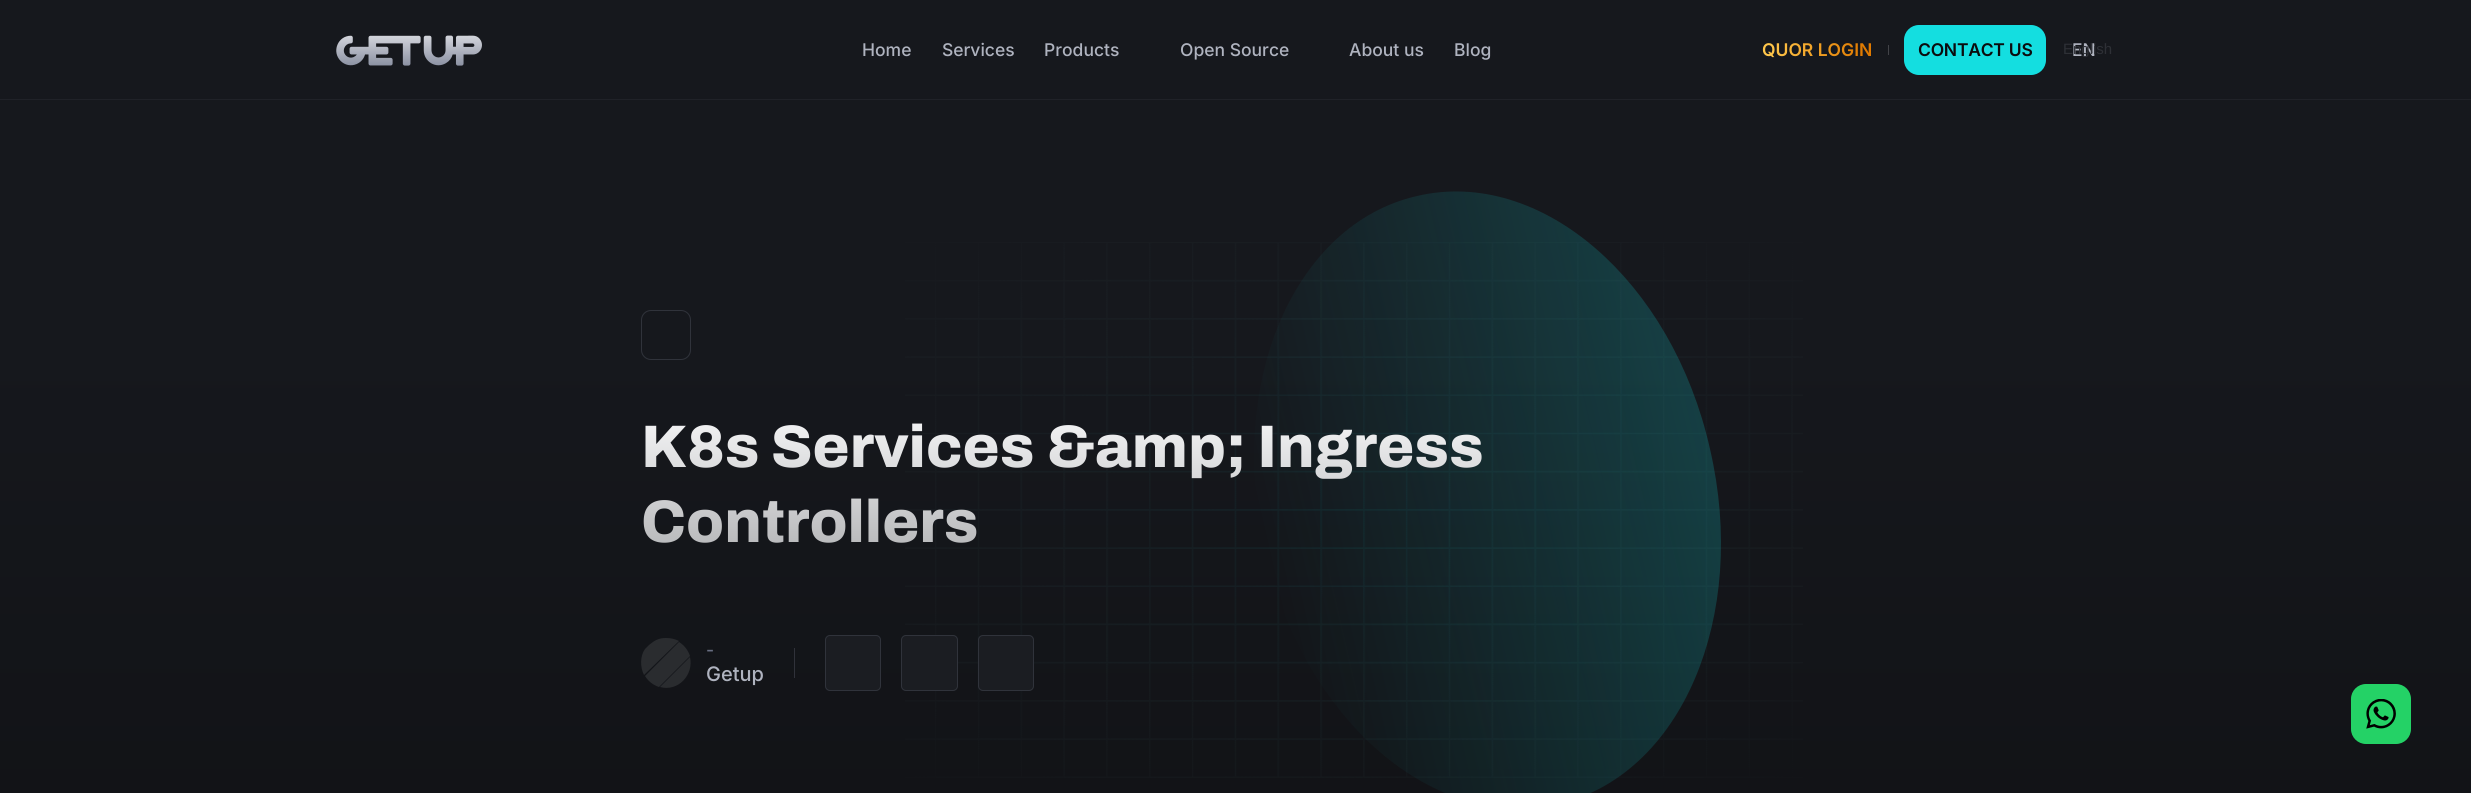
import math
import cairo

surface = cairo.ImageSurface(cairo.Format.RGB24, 2471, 793)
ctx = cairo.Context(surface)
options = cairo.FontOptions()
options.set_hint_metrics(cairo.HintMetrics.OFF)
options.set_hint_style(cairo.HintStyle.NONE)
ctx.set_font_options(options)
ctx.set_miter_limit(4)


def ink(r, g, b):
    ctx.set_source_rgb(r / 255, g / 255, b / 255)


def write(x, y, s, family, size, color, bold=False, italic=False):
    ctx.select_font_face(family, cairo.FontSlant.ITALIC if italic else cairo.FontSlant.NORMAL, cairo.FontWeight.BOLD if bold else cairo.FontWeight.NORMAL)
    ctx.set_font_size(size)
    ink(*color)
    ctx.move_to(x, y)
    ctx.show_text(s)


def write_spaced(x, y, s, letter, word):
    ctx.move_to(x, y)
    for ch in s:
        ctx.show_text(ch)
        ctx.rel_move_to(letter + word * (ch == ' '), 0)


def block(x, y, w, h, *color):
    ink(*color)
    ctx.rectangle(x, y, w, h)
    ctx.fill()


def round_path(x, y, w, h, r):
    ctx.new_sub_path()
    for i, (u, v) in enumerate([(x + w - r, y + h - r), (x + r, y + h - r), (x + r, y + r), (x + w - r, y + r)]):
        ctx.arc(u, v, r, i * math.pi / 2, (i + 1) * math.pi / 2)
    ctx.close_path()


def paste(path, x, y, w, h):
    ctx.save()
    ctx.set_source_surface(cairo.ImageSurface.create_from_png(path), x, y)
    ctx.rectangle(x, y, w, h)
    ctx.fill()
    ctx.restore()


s1 = dict(family="Inter Medium", size=17.5, color=(175, 179, 191))
s2 = dict(family="Liberation Sans", size=15, color=(46, 48, 54))
s3 = dict(family="Inter Medium", size=17.5, color=(104, 110, 130))
s4 = dict(family="Inter Medium", size=20, color=(175, 179, 191))

ink(255, 255, 255)
ctx.paint()
block(0, 0, 2471, 99, 22, 24, 29)
paste("pic1.png", 336, 35, 146, 31)
write(862, 56, "Home", **s1)
write(942, 56, "Services", **s1)
write(1044, 56, "Products", **s1)
write(1180, 56, "Open Source", **s1)
write(1349, 56, "About us", **s1)
write(1454, 56, "Blog", **s1)
ctx.select_font_face("Inter SemiBold")
gradient = cairo.LinearGradient(1875, 50, 1759, 50)
gradient.add_color_stop_rgba(0.1, 0.878, 0.478, 0, 1)
gradient.add_color_stop_rgba(0.9, 1, 0.776, 0.29, 1)
ctx.set_source(gradient)
ctx.move_to(1762, 56)
ctx.show_text("QUOR LOGIN")
block(1888, 45, 1, 10, 66, 67, 72)
ink(20, 222, 224)
round_path(1904, 25, 142, 50, 15)
ctx.fill()
ink(11, 12, 14)
write_spaced(1918, 56, "CONTACT US", -0.25, 0)
write(2072, 56, "EN", **s1)
write(2063, 54, "English", **s2)
block(0, 99, 2471, 1, 32, 34, 40)
gradient = cairo.LinearGradient(1236, 0, 1236, 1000)
gradient.add_color_stop_rgba(0.34, 0.086, 0.094, 0.114, 1)
gradient.add_color_stop_rgba(1, 0.063, 0.067, 0.078, 1)
ctx.set_source(gradient)
ctx.rectangle(0, 100, 2471, 693)
ctx.fill()
paste("pic2.png", 905, 242, 898, 536)
gradient = cairo.LinearGradient(1710, 449, 1265, 551)
gradient.add_color_stop_rgba(0, 0.078, 0.867, 0.878, 0.2)
gradient.add_color_stop_rgba(1, 0.078, 0.867, 0.878, 0)
ctx.set_source(gradient)
ctx.new_path()
ctx.move_to(1710, 449)
ctx.curve_to(1749, 617, 1681, 776, 1558, 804)
ctx.curve_to(1435, 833, 1303, 720, 1265, 551)
ctx.curve_to(1226, 383, 1294, 224, 1417, 196)
ctx.curve_to(1540, 167, 1672, 280, 1710, 449)
ctx.close_path()
ctx.fill()
round_path(641.5, 310.5, 49, 49, 9.5)
ink(48, 51, 59)
ctx.set_line_width(1)
ctx.stroke()
ctx.select_font_face("Archivo ExtraBold")
ctx.set_font_size(60)
gradient = cairo.LinearGradient(1203, 559, 1203, 409)
gradient.add_color_stop_rgba(0, 0.702, 0.71, 0.718, 1)
gradient.add_color_stop_rgba(1, 0.969, 0.969, 0.973, 1)
ctx.set_source(gradient)
ctx.move_to(641, 467)
ctx.show_text("K8s Services &amp; Ingress")
gradient = cairo.LinearGradient(1203, 559, 1203, 409)
gradient.add_color_stop_rgba(0, 0.702, 0.706, 0.714, 1)
gradient.add_color_stop_rgba(1, 0.969, 0.969, 0.973, 1)
ctx.set_source(gradient)
ctx.move_to(641, 542)
ctx.show_text("Controllers")
ink(42, 44, 47)
ctx.set_fill_rule(cairo.FillRule.EVEN_ODD)
ctx.new_path()
ctx.move_to(666, 638)
ctx.curve_to(659, 638, 655, 640, 649, 645)
ctx.line_to(645, 649)
ctx.curve_to(640, 656, 640, 667, 644, 675)
ctx.line_to(679, 641)
ctx.curve_to(675, 639, 671, 638, 666, 638)
ctx.close_path()
ctx.move_to(679, 642)
ctx.line_to(645, 676)
ctx.curve_to(648, 681, 653, 685, 659, 687)
ctx.line_to(690, 656)
ctx.curve_to(688, 650, 684, 645, 679, 642)
ctx.close_path()
ctx.move_to(660, 687)
ctx.curve_to(678, 692, 694, 675, 690, 657)
ctx.close_path()
ctx.fill()
write(706, 656, "-", **s3)
write(706, 681, "Getup", **s4)
block(794, 648, 1, 30, 48, 50, 58)
ink(27, 29, 34)
round_path(825.5, 635.5, 55, 55, 4.5)
ctx.fill_preserve()
ink(48, 51, 59)
ctx.stroke()
ink(27, 29, 34)
round_path(901.5, 635.5, 56, 55, 4.5)
ctx.fill_preserve()
ink(48, 51, 59)
ctx.stroke()
ink(27, 29, 34)
round_path(978.5, 635.5, 55, 55, 4.5)
ctx.fill_preserve()
ink(48, 51, 59)
ctx.stroke()
ink(36, 210, 102)
round_path(2351, 684, 60, 60, 15)
ctx.fill()
paste("pic3.png", 2366, 699, 30, 30)
surface.write_to_png("screenshot.png")
